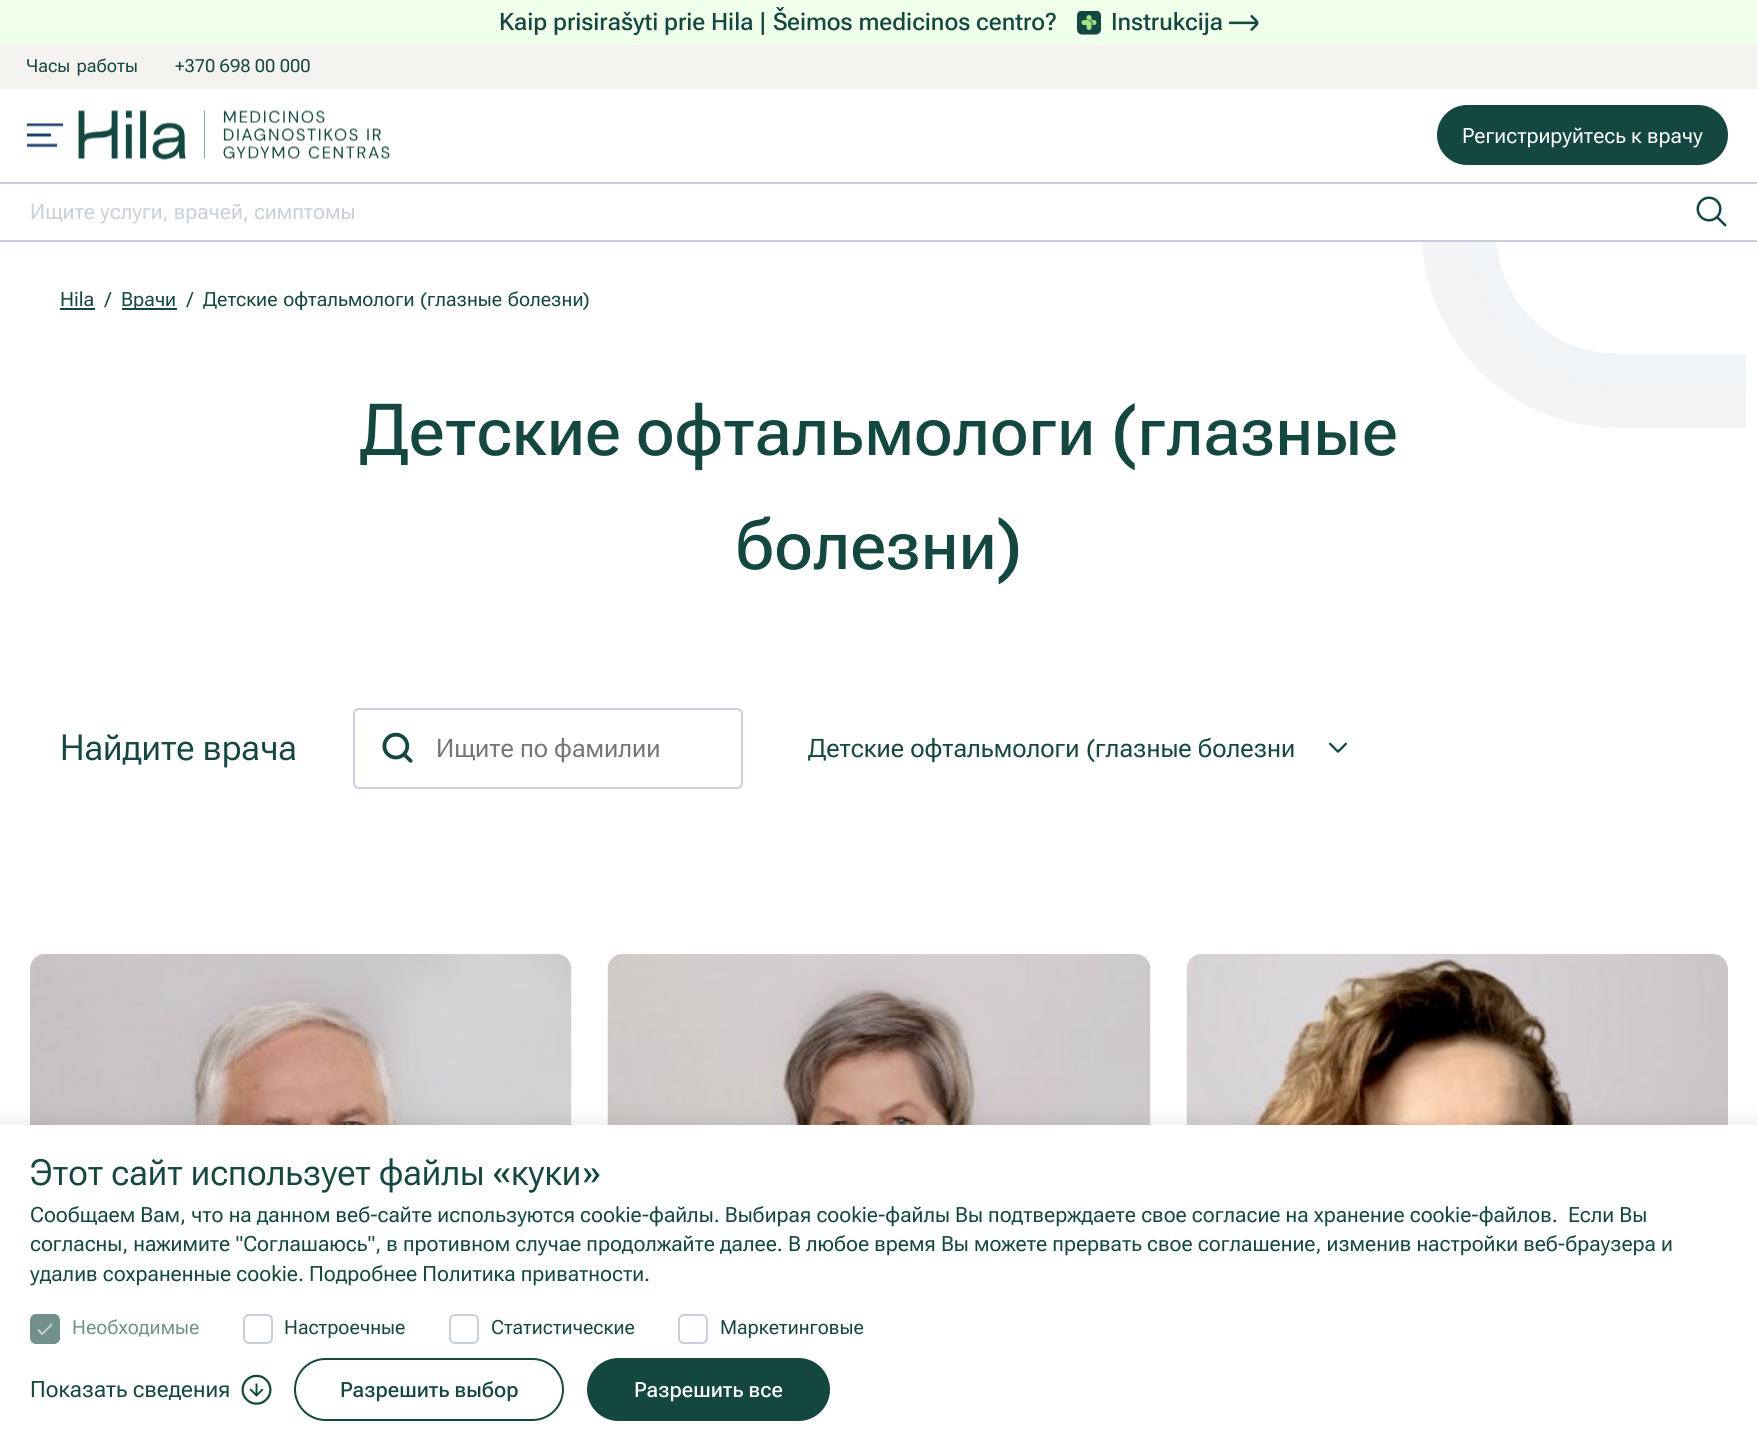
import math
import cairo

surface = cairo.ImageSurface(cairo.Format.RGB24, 1757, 1447)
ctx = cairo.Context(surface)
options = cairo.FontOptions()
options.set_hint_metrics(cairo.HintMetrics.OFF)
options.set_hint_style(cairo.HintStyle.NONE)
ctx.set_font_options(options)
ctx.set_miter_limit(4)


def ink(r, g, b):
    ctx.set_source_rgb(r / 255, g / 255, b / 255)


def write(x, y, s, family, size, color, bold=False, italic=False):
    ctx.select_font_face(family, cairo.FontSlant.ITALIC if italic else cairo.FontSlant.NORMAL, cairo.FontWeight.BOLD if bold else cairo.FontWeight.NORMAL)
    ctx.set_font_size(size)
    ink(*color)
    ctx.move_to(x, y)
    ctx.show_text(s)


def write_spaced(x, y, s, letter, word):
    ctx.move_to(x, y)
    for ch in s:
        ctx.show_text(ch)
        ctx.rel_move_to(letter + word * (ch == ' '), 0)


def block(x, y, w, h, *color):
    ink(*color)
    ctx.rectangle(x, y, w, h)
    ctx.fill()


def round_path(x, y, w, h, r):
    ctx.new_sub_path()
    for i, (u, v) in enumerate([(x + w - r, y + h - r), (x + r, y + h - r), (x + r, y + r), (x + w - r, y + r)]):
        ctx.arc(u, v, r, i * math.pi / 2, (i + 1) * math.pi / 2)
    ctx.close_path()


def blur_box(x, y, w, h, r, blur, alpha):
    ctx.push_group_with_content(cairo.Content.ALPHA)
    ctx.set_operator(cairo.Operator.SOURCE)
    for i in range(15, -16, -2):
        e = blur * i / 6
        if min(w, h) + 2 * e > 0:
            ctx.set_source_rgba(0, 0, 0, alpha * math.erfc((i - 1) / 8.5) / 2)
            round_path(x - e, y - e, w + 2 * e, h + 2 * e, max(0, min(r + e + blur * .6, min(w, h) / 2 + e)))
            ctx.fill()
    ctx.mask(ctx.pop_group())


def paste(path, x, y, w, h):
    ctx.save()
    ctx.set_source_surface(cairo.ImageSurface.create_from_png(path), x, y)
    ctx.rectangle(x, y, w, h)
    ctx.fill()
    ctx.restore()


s1 = dict(family="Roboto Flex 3 Medium", size=24, color=(20, 71, 64))
s2 = dict(family="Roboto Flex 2 Medium", size=24, color=(20, 71, 64))
s3 = dict(family="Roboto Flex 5", size=18, color=(20, 71, 64))
s4 = dict(family="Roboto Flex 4", size=21, color=(255, 255, 255))
s5 = dict(family="Roboto Flex 4", size=21, color=(199, 207, 219))
s6 = dict(family="Roboto Flex 3", size=19.5, color=(20, 71, 64))
s7 = dict(family="Roboto Flex 4", size=19.5, color=(20, 71, 64))
s8 = dict(family="Roboto Flex", size=36, color=(20, 71, 64))
s9 = dict(family="Roboto Flex 2", size=25.5, color=(118, 118, 118))
s10 = dict(family="Roboto Flex 2", size=25.5, color=(20, 71, 64))
s11 = dict(family="Roboto Flex 4", size=25.5, color=(20, 71, 64))
s12 = dict(family="Roboto Flex 4", size=36, color=(20, 71, 64))
s13 = dict(family="Roboto Flex 4", size=21, color=(20, 71, 64))
s14 = dict(family="Roboto Flex 4", size=19.5, color=(114, 145, 140))
s15 = dict(family="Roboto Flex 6", size=22.5, color=(20, 71, 64))
s16 = dict(family="Roboto Flex 2 Medium", size=21, color=(20, 71, 64))
s17 = dict(family="Roboto Flex 2 Medium", size=21, color=(255, 255, 255))

ink(255, 255, 255)
ctx.paint()
block(0, 0, 1757, 45, 240, 255, 234)
write(499, 30, "Kaip prisira", **s1)
write(621, 30, "š", **s2)
write(633, 30, "yti prie Hila |", **s1)
write(773, 30, "Š", **s2)
write(787, 30, "eimos medicinos centro?", **s1)
paste("pic1.png", 1077, 11, 24, 24)
write(1111, 30, "Instrukcija", **s1)
paste("pic2.png", 1229, 15, 30, 16)
block(0, 45, 1757, 44, 245, 243, 240)
ctx.select_font_face("Roboto Flex 4")
ctx.set_font_size(18)
ink(20, 71, 64)
write_spaced(26, 72, "Часы работы", 0, 2)
write(175, 72, "+370 698 00 000", **s3)
round_path(1437, 105, 291, 60, 30)
ctx.fill()
write(1462, 143, "Регистрируйтесь к врачу", **s4)
paste("pic3.png", 27, 123, 36, 25)
paste("pic4.png", 78, 110, 312, 50)
block(0, 182, 1757, 2, 199, 207, 219)
block(0, 240, 1757, 2, 199, 207, 219)
write(30, 219, "Ищите услуги, врачей, симптомы", **s5)
paste("pic5.png", 1696, 196, 31, 31)
write(60, 306, "Hila", **s6)
block(60, 308, 35, 2, 20, 71, 64)
write(105, 306, "/", **s6)
block(122, 308, 55, 2, 20, 71, 64)
write(121, 306, "Врачи", **s7)
write(187, 306, "/", **s6)
ctx.select_font_face("Roboto Flex 4")
write_spaced(203, 306, "Детские офтальмологи", 0, 1)
write(420, 306, "(", **s6)
ctx.select_font_face("Roboto Flex 4")
write_spaced(427, 306, "глазные болезни", 0, 1)
write(583, 306, ")", **s6)
paste("pic6.png", 1422, 242, 324, 186)
ctx.select_font_face("Roboto Flex Medium")
ctx.set_font_size(72)
write_spaced(360, 455, "Детские офтальмологи", 0.9, -1)
ctx.select_font_face("Roboto Flex 2 Medium")
write_spaced(1111, 455, "(", 0.9, 0)
ctx.select_font_face("Roboto Flex Medium")
write_spaced(1138, 455, "глазные", 0.9, 0)
write_spaced(736, 569, "болезни", 0.9, 0)
ctx.select_font_face("Roboto Flex 2 Medium")
write_spaced(997, 569, ")", 0.9, 0)
write(60, 760, "Найдите врача", **s8)
round_path(354, 709, 388, 79, 5)
ink(199, 207, 219)
ctx.stroke()
paste("pic7.png", 382, 732, 31, 31)
write(436, 757, "Ищите по фамилии", **s9)
write(808, 757, "Детские офтальмологи", **s10)
write(1086, 757, "(", **s11)
write(1095, 757, "глазные болезни", **s10)
paste("pic8.png", 1329, 742, 18, 11)
paste("pic9.png", 30, 954, 542, 171)
paste("pic10.png", 607, 954, 544, 171)
paste("pic11.png", 1186, 954, 542, 171)
ink(0, 0, 0)
blur_box(-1, 1124, 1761, 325, 0, 11, 0.1)
block(0, 1125, 1757, 322, 255, 255, 255)
write(30, 1185, "Этот сайт использует файлы", **s8)
write(492, 1185, "«", **s12)
write(511, 1185, "куки", **s8)
write(582, 1185, "»", **s12)
write(30, 1222, "Сообщаем Вам, что на данном веб-сайте используются cookie-файлы. Выбирая cookie-файлы Вы подтверждаете свое согласие на хранение cookie-файлов.  Если Вы", **s13)
write(30, 1251, "согласны, нажимите \"Cоглашаюсь\", в противном случае продолжайте далее. В любое время Вы можете прервать свое соглашение, изменив настройки веб-браузера и", **s13)
write(30, 1281, "удалив сохраненные cookie. Подробнее Политика приватности.", **s13)
ink(114, 145, 140)
round_path(31, 1315, 28, 28, 5)
ctx.fill_preserve()
ctx.stroke()
paste("pic12.png", 37, 1323, 16, 12)
write(72, 1334, "Необходимые", **s14)
round_path(244, 1315, 28, 28, 5)
ink(199, 207, 219)
ctx.stroke()
write(284, 1334, "Настроечные", **s7)
round_path(450, 1315, 28, 28, 5)
ink(199, 207, 219)
ctx.stroke()
write(491, 1334, "Статистические", **s7)
round_path(679, 1315, 28, 28, 5)
ink(199, 207, 219)
ctx.stroke()
write(720, 1334, "Маркетинговые", **s7)
write(30, 1397, "Показать сведения", **s15)
paste("pic13.png", 241, 1374, 31, 31)
round_path(295, 1359, 268, 61, 30.5)
ctx.stroke()
write(340, 1397, "Разрешить выбор", **s16)
round_path(587, 1358, 243, 63, 31.5)
ctx.fill()
write(634, 1397, "Разрешить все", **s17)
surface.write_to_png("screenshot.png")
